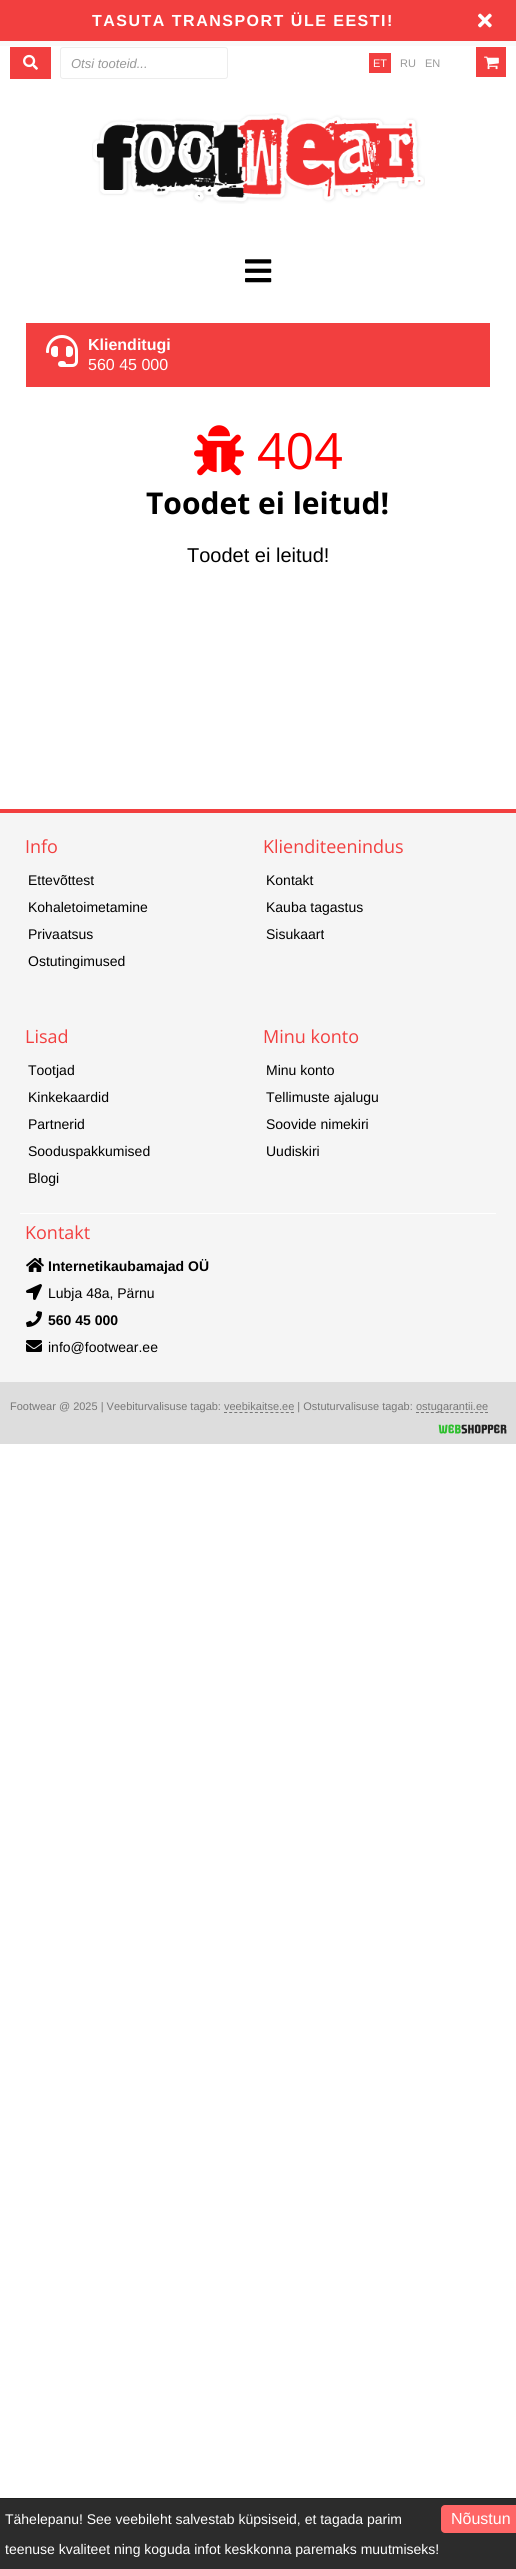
import math
import cairo

surface = cairo.ImageSurface(cairo.Format.RGB24, 516, 2569)
ctx = cairo.Context(surface)
options = cairo.FontOptions()
options.set_hint_metrics(cairo.HintMetrics.OFF)
options.set_hint_style(cairo.HintStyle.NONE)
ctx.set_font_options(options)
ctx.set_miter_limit(4)


def ink(r, g, b):
    ctx.set_source_rgb(r / 255, g / 255, b / 255)


def write(x, y, s, family, size, color, bold=False, italic=False):
    ctx.select_font_face(family, cairo.FontSlant.ITALIC if italic else cairo.FontSlant.NORMAL, cairo.FontWeight.BOLD if bold else cairo.FontWeight.NORMAL)
    ctx.set_font_size(size)
    ink(*color)
    ctx.move_to(x, y)
    ctx.show_text(s)


def write_spaced(x, y, s, letter, word):
    ctx.move_to(x, y)
    for ch in s:
        ctx.show_text(ch)
        ctx.rel_move_to(letter + word * (ch == ' '), 0)


def block(x, y, w, h, *color):
    ink(*color)
    ctx.rectangle(x, y, w, h)
    ctx.fill()


def round_path(x, y, w, h, r):
    ctx.new_sub_path()
    for i, (u, v) in enumerate([(x + w - r, y + h - r), (x + r, y + h - r), (x + r, y + r), (x + w - r, y + r)]):
        ctx.arc(u, v, r, i * math.pi / 2, (i + 1) * math.pi / 2)
    ctx.close_path()


def paste(path, x, y, w, h):
    ctx.save()
    ctx.set_source_surface(cairo.ImageSurface.create_from_png(path), x, y)
    ctx.rectangle(x, y, w, h)
    ctx.fill()
    ctx.restore()


s1 = dict(family="Liberation Sans", size=13, color=(153, 153, 153), italic=True)
s2 = dict(family="Liberation Sans", size=11, color=(255, 255, 255))
s3 = dict(family="Liberation Sans", size=11, color=(153, 153, 153))
s4 = dict(family="Liberation Sans", size=16, color=(255, 255, 255), bold=True)
s5 = dict(family="Liberation Sans", size=16, color=(255, 255, 255))
s6 = dict(family="Open Sans", size=50, color=(255, 0, 0))
s7 = dict(family="Open Sans", size=30, color=(0, 0, 0), bold=True)
s8 = dict(family="Liberation Sans", size=20, color=(0, 0, 0))
s9 = dict(family="Liberation Sans", size=14, color=(255, 255, 255))
s10 = dict(family="Open Sans", size=18, color=(242, 63, 63))
s11 = dict(family="Liberation Sans", size=14, color=(0, 0, 0))
s12 = dict(family="Liberation Sans", size=14, color=(0, 0, 0), bold=True)
s13 = dict(family="Liberation Sans", size=11, color=(119, 119, 119))

ink(255, 255, 255)
ctx.paint()
block(0, 0, 516, 41, 242, 63, 63)
ctx.select_font_face("Liberation Sans", cairo.FontSlant.NORMAL, cairo.FontWeight.BOLD)
ctx.set_font_size(16)
ink(255, 255, 255)
write_spaced(92, 26, "TASUTA TRANSPORT ÜLE EESTI!", 1.5, 0)
paste("pic1.png", 478, 13, 14, 15)
block(0, 41, 516, 5, 250, 250, 250)
block(10, 47, 41, 32, 242, 63, 63)
paste("pic2.png", 23, 54, 15, 16)
round_path(60.5, 47.5, 167, 31, 2.5)
ink(237, 237, 237)
ctx.set_line_width(1)
ctx.stroke()
write(71, 68, "Otsi tooteid...", **s1)
block(369, 53, 22, 20, 242, 63, 63)
write(373, 67, "ET", **s2)
write(400, 67, "RU", **s3)
write(425, 67, "EN", **s3)
block(476, 47, 30, 30, 242, 63, 63)
paste("pic3.png", 484, 56, 15, 14)
paste("pic4.png", 92, 113, 333, 91)
paste("pic5.png", 245, 259, 27, 24)
block(26, 323, 464, 64, 242, 63, 63)
paste("pic6.png", 46, 335, 32, 32)
write(88, 350, "Klienditugi", **s4)
write(88, 370, "560 45 000", **s5)
paste("pic7.png", 194, 425, 50, 51)
write(257, 469, "404", **s6)
write(146, 514, "Toodet ei leitud!", **s7)
write(187, 562, "Toodet ei leitud!", **s8)
block(0, 2499, 516, 70, 44, 44, 44)
block(0, 2498, 516, 1, 31, 31, 31)
write(5, 2524, "Tähelepanu! See veebileht salvestab küpsiseid, et tagada parim", **s9)
ink(255, 102, 102)
round_path(441, 2505, 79, 28, 4)
ctx.fill()
write(451, 2524, "Nõustun", **s5)
write(5, 2554, "teenuse kvaliteet ning koguda infot keskkonna paremaks muutmiseks!", **s9)
block(0, 813, 516, 569, 245, 245, 245)
block(0, 809, 516, 4, 242, 63, 63)
write(25, 853, "Info", **s10)
write(28, 885, "Ettevõttest", **s11)
write(28, 912, "Kohaletoimetamine", **s11)
write(28, 939, "Privaatsus", **s11)
write(28, 966, "Ostutingimused", **s11)
write(263, 853, "Klienditeenindus", **s10)
write(266, 885, "Kontakt", **s11)
write(266, 912, "Kauba tagastus", **s11)
write(266, 939, "Sisukaart", **s11)
write(25, 1043, "Lisad", **s10)
write(28, 1075, "Tootjad", **s11)
write(28, 1102, "Kinkekaardid", **s11)
write(28, 1129, "Partnerid", **s11)
write(28, 1156, "Sooduspakkumised", **s11)
write(28, 1183, "Blogi", **s11)
write(263, 1043, "Minu konto", **s10)
write(266, 1075, "Minu konto", **s11)
write(266, 1102, "Tellimuste ajalugu", **s11)
write(266, 1129, "Soovide nimekiri", **s11)
write(266, 1156, "Uudiskiri", **s11)
block(20, 1213, 476, 1, 255, 255, 255)
write(25, 1239, "Kontakt", **s10)
paste("pic8.png", 26, 1258, 18, 14)
write(48, 1271, "Internetikaubamajad OÜ", **s12)
paste("pic9.png", 26, 1284, 16, 16)
write(48, 1298, "Lubja 48a, Pärnu", **s11)
paste("pic10.png", 26, 1311, 16, 16)
write(48, 1325, "560 45 000", **s12)
paste("pic11.png", 26, 1340, 16, 12)
write(48, 1352, "info@footwear.ee", **s11)
block(0, 1382, 516, 62, 221, 221, 221)
write(10, 1410, "Footwear @ 2025 | Veebiturvalisuse tagab: veebikaitse.ee | Ostuturvalisuse tagab:", **s13)
ctx.new_path()
ctx.move_to(416, 1412.5)
ctx.line_to(488, 1412.5)
ctx.set_dash([3, 1.93])
ctx.stroke()
write(416, 1410, "ostugarantii.ee", **s13)
ctx.new_path()
ctx.move_to(224, 1412.5)
ctx.line_to(294, 1412.5)
ctx.set_dash([3, 2.15])
ctx.stroke()
paste("pic12.png", 438, 1424, 69, 10)
surface.write_to_png("screenshot.png")
